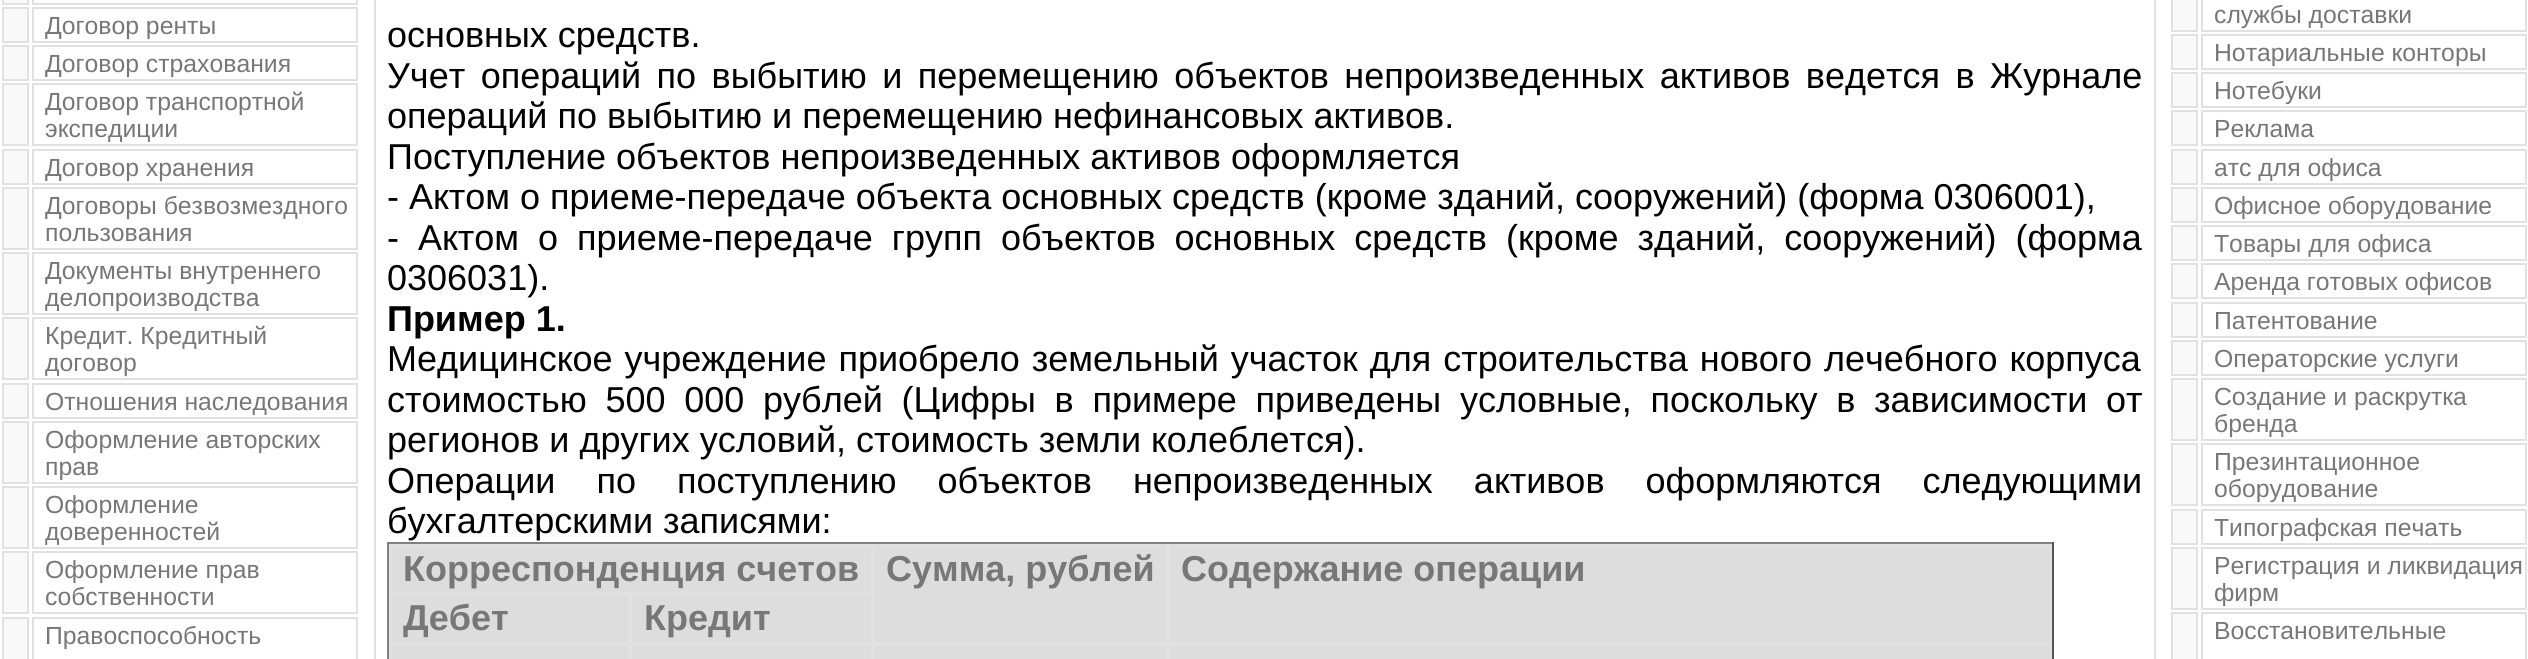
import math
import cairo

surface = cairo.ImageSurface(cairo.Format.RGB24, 2528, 659)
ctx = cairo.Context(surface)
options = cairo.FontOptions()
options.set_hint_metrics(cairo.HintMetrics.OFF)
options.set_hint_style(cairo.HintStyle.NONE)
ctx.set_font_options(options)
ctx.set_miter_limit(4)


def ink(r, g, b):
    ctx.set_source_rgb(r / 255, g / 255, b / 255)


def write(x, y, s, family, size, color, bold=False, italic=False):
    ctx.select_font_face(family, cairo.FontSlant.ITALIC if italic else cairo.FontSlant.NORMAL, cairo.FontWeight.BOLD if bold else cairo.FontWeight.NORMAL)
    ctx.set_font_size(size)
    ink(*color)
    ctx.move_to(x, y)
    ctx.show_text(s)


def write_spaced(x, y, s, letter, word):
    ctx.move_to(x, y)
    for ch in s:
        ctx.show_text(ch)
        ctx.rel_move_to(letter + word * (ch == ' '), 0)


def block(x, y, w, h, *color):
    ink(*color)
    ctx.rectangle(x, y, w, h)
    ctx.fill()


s1 = dict(family="Liberation Sans", size=24.75, color=(119, 119, 119))
s2 = dict(family="Liberation Sans", size=36, color=(0, 0, 0))
s3 = dict(family="Liberation Sans", size=36, color=(0, 0, 0), bold=True)
s4 = dict(family="Liberation Sans", size=36, color=(119, 119, 119), bold=True)

ink(255, 255, 255)
ctx.paint()
ink(249, 249, 249)
ctx.rectangle(3, -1, 25, 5)
ctx.fill_preserve()
ink(225, 225, 225)
ctx.stroke()
ctx.rectangle(33, -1, 324, 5)
ctx.stroke()
ink(249, 249, 249)
ctx.rectangle(3, 8, 25, 34)
ctx.fill_preserve()
ink(225, 225, 225)
ctx.stroke()
ctx.rectangle(33, 8, 324, 34)
ctx.stroke()
write(45, 34, "Договор ренты", **s1)
ink(249, 249, 249)
ctx.rectangle(3, 46, 25, 34)
ctx.fill_preserve()
ink(225, 225, 225)
ctx.stroke()
ctx.rectangle(33, 46, 324, 34)
ctx.stroke()
write(45, 72, "Договор страхования", **s1)
ink(249, 249, 249)
ctx.rectangle(3, 84, 25, 61)
ctx.fill_preserve()
ink(225, 225, 225)
ctx.stroke()
ctx.rectangle(33, 84, 324, 61)
ctx.stroke()
write(45, 110, "Договор транспортной", **s1)
write(45, 137, "экспедиции", **s1)
ink(249, 249, 249)
ctx.rectangle(3, 150, 25, 34)
ctx.fill_preserve()
ink(225, 225, 225)
ctx.stroke()
ctx.rectangle(33, 150, 324, 34)
ctx.stroke()
write(45, 176, "Договор хранения", **s1)
ink(249, 249, 249)
ctx.rectangle(3, 188, 25, 61)
ctx.fill_preserve()
ink(225, 225, 225)
ctx.stroke()
ctx.rectangle(33, 188, 324, 61)
ctx.stroke()
write(45, 214, "Договоры безвозмездного", **s1)
write(45, 241, "пользования", **s1)
ink(249, 249, 249)
ctx.rectangle(3, 253, 25, 61)
ctx.fill_preserve()
ink(225, 225, 225)
ctx.stroke()
ctx.rectangle(33, 253, 324, 61)
ctx.stroke()
write(45, 279, "Документы внутреннего", **s1)
write(45, 306, "делопроизводства", **s1)
ink(249, 249, 249)
ctx.rectangle(3, 318, 25, 61)
ctx.fill_preserve()
ink(225, 225, 225)
ctx.stroke()
ctx.rectangle(33, 318, 324, 61)
ctx.stroke()
write(45, 344, "Кредит. Кредитный", **s1)
write(45, 371, "договор", **s1)
ink(249, 249, 249)
ctx.rectangle(3, 384, 25, 34)
ctx.fill_preserve()
ink(225, 225, 225)
ctx.stroke()
ctx.rectangle(33, 384, 324, 34)
ctx.stroke()
write(45, 410, "Отношения наследования", **s1)
ink(249, 249, 249)
ctx.rectangle(3, 422, 25, 61)
ctx.fill_preserve()
ink(225, 225, 225)
ctx.stroke()
ctx.rectangle(33, 422, 324, 61)
ctx.stroke()
write(45, 448, "Оформление авторских", **s1)
write(45, 475, "прав", **s1)
ink(249, 249, 249)
ctx.rectangle(3, 487, 25, 61)
ctx.fill_preserve()
ink(225, 225, 225)
ctx.stroke()
ctx.rectangle(33, 487, 324, 61)
ctx.stroke()
write(45, 513, "Оформление", **s1)
write(45, 540, "доверенностей", **s1)
ink(249, 249, 249)
ctx.rectangle(3, 552, 25, 61)
ctx.fill_preserve()
ink(225, 225, 225)
ctx.stroke()
ctx.rectangle(33, 552, 324, 61)
ctx.stroke()
write(45, 578, "Оформление прав", **s1)
write(45, 605, "собственности", **s1)
ink(249, 249, 249)
ctx.rectangle(3, 618, 25, 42)
ctx.fill_preserve()
ink(225, 225, 225)
ctx.stroke()
ctx.rectangle(33, 618, 324, 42)
ctx.stroke()
write(45, 644, "Правоспособность", **s1)
ctx.rectangle(375, -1, 1780, 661)
ink(225, 225, 225)
ctx.stroke()
write(387, 47, "основных средств.", **s2)
write_spaced(387, 88, "Учет операций по выбытию и перемещению объектов непроизведенных активов ведется в Журнале", 0, 5.5)
write(387, 128, "операций по выбытию и перемещению нефинансовых активов.", **s2)
write(387, 169, "Поступление объектов непроизведенных активов оформляется", **s2)
write(387, 209, "- Актом о приеме-передаче объекта основных средств (кроме зданий, сооружений) (форма 0306001),", **s2)
write_spaced(387, 250, "- Актом о приеме-передаче групп объектов основных средств (кроме зданий, сооружений) (форма", 0, 9)
write(387, 290, "0306031).", **s2)
write(387, 331, "Пример 1.", **s3)
ctx.select_font_face("Liberation Sans")
write_spaced(387, 371, "Медицинское учреждение приобрело земельный участок для строительства нового лечебного корпуса", 0, 2)
write_spaced(387, 412, "стоимостью 500 000 рублей (Цифры в примере приведены условные, поскольку в зависимости от", 0, 8.75)
write(387, 452, "регионов и других условий, стоимость земли колеблется).", **s2)
write_spaced(387, 493, "Операции по поступлению объектов непроизведенных активов оформляются следующими", 0, 31)
write(387, 533, "бухгалтерскими записями:", **s2)
block(389, 544, 1663, 115, 221, 221, 221)
block(387, 542, 1667, 2, 128, 128, 128)
block(2052, 542, 2, 117, 85, 85, 85)
block(387, 542, 2, 117, 128, 128, 128)
ctx.rectangle(390, 546, 482, 47)
ink(225, 225, 225)
ctx.stroke()
write(403, 581, "Корреспонденция счетов", **s4)
ctx.rectangle(874, 546, 293, 97)
ink(225, 225, 225)
ctx.stroke()
write(886, 581, "Сумма, рублей", **s4)
ctx.rectangle(1169, 546, 882, 97)
ink(225, 225, 225)
ctx.stroke()
write(1181, 581, "Содержание операции", **s4)
ctx.rectangle(390, 595, 239, 48)
ink(225, 225, 225)
ctx.stroke()
write(403, 630, "Дебет", **s4)
ctx.rectangle(631, 595, 241, 48)
ink(225, 225, 225)
ctx.stroke()
write(644, 630, "Кредит", **s4)
ctx.rectangle(390, 645, 239, 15)
ink(225, 225, 225)
ctx.stroke()
ctx.rectangle(631, 645, 241, 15)
ctx.stroke()
ctx.rectangle(874, 645, 293, 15)
ctx.stroke()
ctx.rectangle(1169, 645, 882, 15)
ctx.stroke()
ink(249, 249, 249)
ctx.rectangle(2172, -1, 25, 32)
ctx.fill_preserve()
ink(225, 225, 225)
ctx.stroke()
ctx.rectangle(2202, -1, 324, 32)
ctx.stroke()
write(2214, 23, "службы доставки", **s1)
ink(249, 249, 249)
ctx.rectangle(2172, 35, 25, 34)
ctx.fill_preserve()
ink(225, 225, 225)
ctx.stroke()
ctx.rectangle(2202, 35, 324, 34)
ctx.stroke()
write(2214, 61, "Нотариальные конторы", **s1)
ink(249, 249, 249)
ctx.rectangle(2172, 73, 25, 34)
ctx.fill_preserve()
ink(225, 225, 225)
ctx.stroke()
ctx.rectangle(2202, 73, 324, 34)
ctx.stroke()
write(2214, 99, "Нотебуки", **s1)
ink(249, 249, 249)
ctx.rectangle(2172, 111, 25, 34)
ctx.fill_preserve()
ink(225, 225, 225)
ctx.stroke()
ctx.rectangle(2202, 111, 324, 34)
ctx.stroke()
write(2214, 137, "Реклама", **s1)
ink(249, 249, 249)
ctx.rectangle(2172, 150, 25, 34)
ctx.fill_preserve()
ink(225, 225, 225)
ctx.stroke()
ctx.rectangle(2202, 150, 324, 34)
ctx.stroke()
write(2214, 176, "атс для офиса", **s1)
ink(249, 249, 249)
ctx.rectangle(2172, 188, 25, 34)
ctx.fill_preserve()
ink(225, 225, 225)
ctx.stroke()
ctx.rectangle(2202, 188, 324, 34)
ctx.stroke()
write(2214, 214, "Офисное оборудование", **s1)
ink(249, 249, 249)
ctx.rectangle(2172, 226, 25, 34)
ctx.fill_preserve()
ink(225, 225, 225)
ctx.stroke()
ctx.rectangle(2202, 226, 324, 34)
ctx.stroke()
write(2214, 252, "Товары для офиса", **s1)
ink(249, 249, 249)
ctx.rectangle(2172, 264, 25, 34)
ctx.fill_preserve()
ink(225, 225, 225)
ctx.stroke()
ctx.rectangle(2202, 264, 324, 34)
ctx.stroke()
write(2214, 290, "Аренда готовых офисов", **s1)
ink(249, 249, 249)
ctx.rectangle(2172, 303, 25, 34)
ctx.fill_preserve()
ink(225, 225, 225)
ctx.stroke()
ctx.rectangle(2202, 303, 324, 34)
ctx.stroke()
write(2214, 329, "Патентование", **s1)
ink(249, 249, 249)
ctx.rectangle(2172, 341, 25, 34)
ctx.fill_preserve()
ink(225, 225, 225)
ctx.stroke()
ctx.rectangle(2202, 341, 324, 34)
ctx.stroke()
write(2214, 367, "Операторские услуги", **s1)
ink(249, 249, 249)
ctx.rectangle(2172, 379, 25, 61)
ctx.fill_preserve()
ink(225, 225, 225)
ctx.stroke()
ctx.rectangle(2202, 379, 324, 61)
ctx.stroke()
write(2214, 405, "Создание и раскрутка", **s1)
write(2214, 432, "бренда", **s1)
ink(249, 249, 249)
ctx.rectangle(2172, 444, 25, 61)
ctx.fill_preserve()
ink(225, 225, 225)
ctx.stroke()
ctx.rectangle(2202, 444, 324, 61)
ctx.stroke()
write(2214, 470, "Презинтационное", **s1)
write(2214, 497, "оборудование", **s1)
ink(249, 249, 249)
ctx.rectangle(2172, 510, 25, 34)
ctx.fill_preserve()
ink(225, 225, 225)
ctx.stroke()
ctx.rectangle(2202, 510, 324, 34)
ctx.stroke()
write(2214, 536, "Типографская печать", **s1)
ink(249, 249, 249)
ctx.rectangle(2172, 548, 25, 61)
ctx.fill_preserve()
ink(225, 225, 225)
ctx.stroke()
ctx.rectangle(2202, 548, 324, 61)
ctx.stroke()
write(2214, 574, "Регистрация и ликвидация", **s1)
write(2214, 601, "фирм", **s1)
ink(249, 249, 249)
ctx.rectangle(2172, 613, 25, 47)
ctx.fill_preserve()
ink(225, 225, 225)
ctx.stroke()
ctx.rectangle(2202, 613, 324, 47)
ctx.stroke()
write(2214, 639, "Восстановительные", **s1)
surface.write_to_png("screenshot.png")
